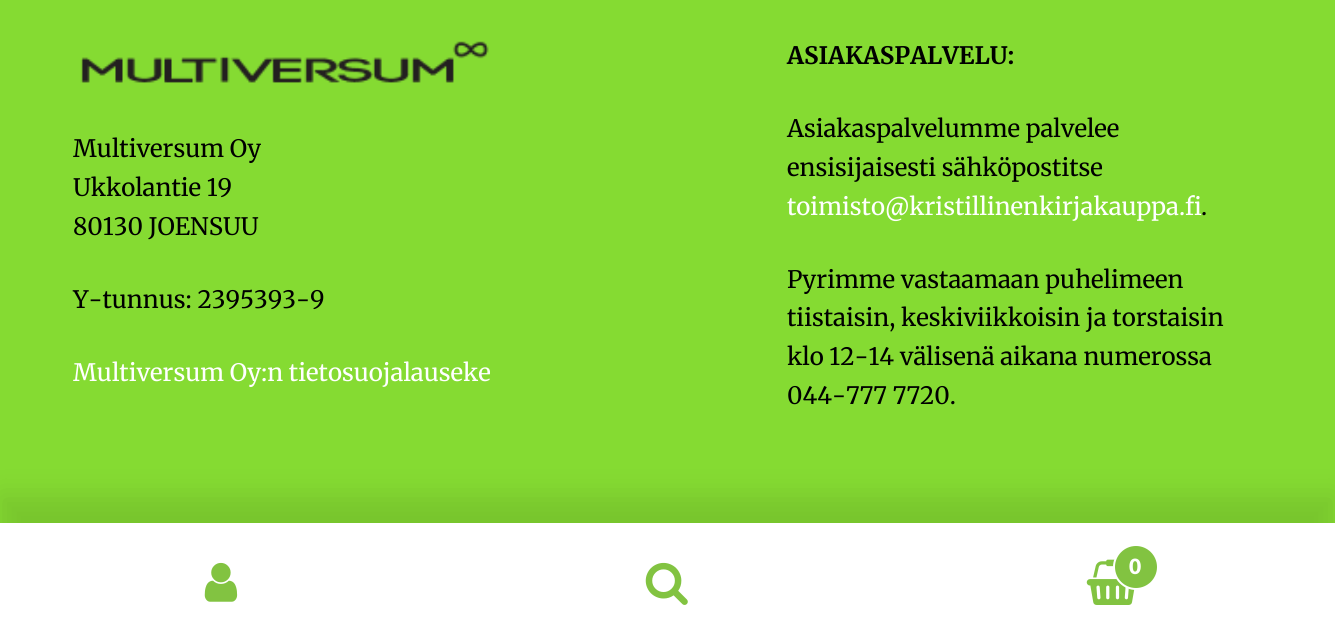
import math
import cairo

surface = cairo.ImageSurface(cairo.Format.RGB24, 1335, 643)
ctx = cairo.Context(surface)
options = cairo.FontOptions()
options.set_hint_metrics(cairo.HintMetrics.OFF)
options.set_hint_style(cairo.HintStyle.NONE)
ctx.set_font_options(options)
ctx.set_miter_limit(4)


def ink(r, g, b):
    ctx.set_source_rgb(r / 255, g / 255, b / 255)


def write(x, y, s, family, size, color, bold=False, italic=False):
    ctx.select_font_face(family, cairo.FontSlant.ITALIC if italic else cairo.FontSlant.NORMAL, cairo.FontWeight.BOLD if bold else cairo.FontWeight.NORMAL)
    ctx.set_font_size(size)
    ink(*color)
    ctx.move_to(x, y)
    ctx.show_text(s)


def block(x, y, w, h, *color):
    ink(*color)
    ctx.rectangle(x, y, w, h)
    ctx.fill()


def round_path(x, y, w, h, r):
    ctx.new_sub_path()
    for i, (u, v) in enumerate([(x + w - r, y + h - r), (x + r, y + h - r), (x + r, y + r), (x + w - r, y + r)]):
        ctx.arc(u, v, r, i * math.pi / 2, (i + 1) * math.pi / 2)
    ctx.close_path()


def blur_box(x, y, w, h, r, blur, alpha):
    ctx.push_group_with_content(cairo.Content.ALPHA)
    ctx.set_operator(cairo.Operator.SOURCE)
    for i in range(15, -16, -2):
        e = blur * i / 6
        if min(w, h) + 2 * e > 0:
            ctx.set_source_rgba(0, 0, 0, alpha * math.erfc((i - 1) / 8.5) / 2)
            round_path(x - e, y - e, w + 2 * e, h + 2 * e, max(0, min(r + e + blur * .6, min(w, h) / 2 + e)))
            ctx.fill()
    ctx.mask(ctx.pop_group())


def paste(path, x, y, w, h):
    ctx.save()
    ctx.set_source_surface(cairo.ImageSurface.create_from_png(path), x, y)
    ctx.rectangle(x, y, w, h)
    ctx.fill()
    ctx.restore()


s1 = dict(family="Merriweather", size=24, color=(0, 0, 0))
s2 = dict(family="Merriweather", size=24, color=(255, 255, 255))
s3 = dict(family="Merriweather", size=24, color=(0, 0, 0), bold=True)
s4 = dict(family="Lato Black", size=21, color=(255, 255, 255))

ink(133, 219, 50)
ctx.paint()
paste("pic1.png", 80, 41, 409, 42)
write(73, 157, "Multiversum Oy", **s1)
write(73, 196, "Ukkolantie 19", **s1)
write(73, 235, "80130 JOENSUU", **s1)
write(73, 308, "Y-tunnus: 2395393-9", **s1)
write(73, 381, "Multiversum Oy:n tietosuojalauseke", **s2)
write(787, 64, "ASIAKASPALVELU:", **s3)
write(787, 137, "Asiakaspalvelumme palvelee", **s1)
write(787, 176, "ensisijaisesti sähköpostitse", **s1)
write(787, 215, "toimisto@kristillinenkirjakauppa.fi", **s2)
write(1201, 215, ".", **s1)
write(787, 288, "Pyrimme vastaamaan puhelimeen", **s1)
write(787, 326, "tiistaisin, keskiviikkoisin ja torstaisin", **s1)
write(787, 365, "klo 12-14 välisenä aikana numerossa", **s1)
write(787, 404, "044-777 7720.", **s1)
ink(0, 0, 0)
blur_box(0, 495, 1335, 121, 0, 14, 0.1)
block(0, 523, 1335, 2, 255, 255, 255)
block(0, 525, 1335, 118, 255, 255, 255)
paste("pic2.png", 204, 562, 34, 40)
paste("pic3.png", 645, 562, 43, 43)
paste("pic4.png", 1086, 559, 49, 46)
ink(130, 195, 65)
ctx.arc(1136, 567, 22, 0, 2 * math.pi)
ctx.fill_preserve()
ink(255, 255, 255)
ctx.stroke()
write(1129, 574, "0", **s4)
surface.write_to_png("screenshot.png")
